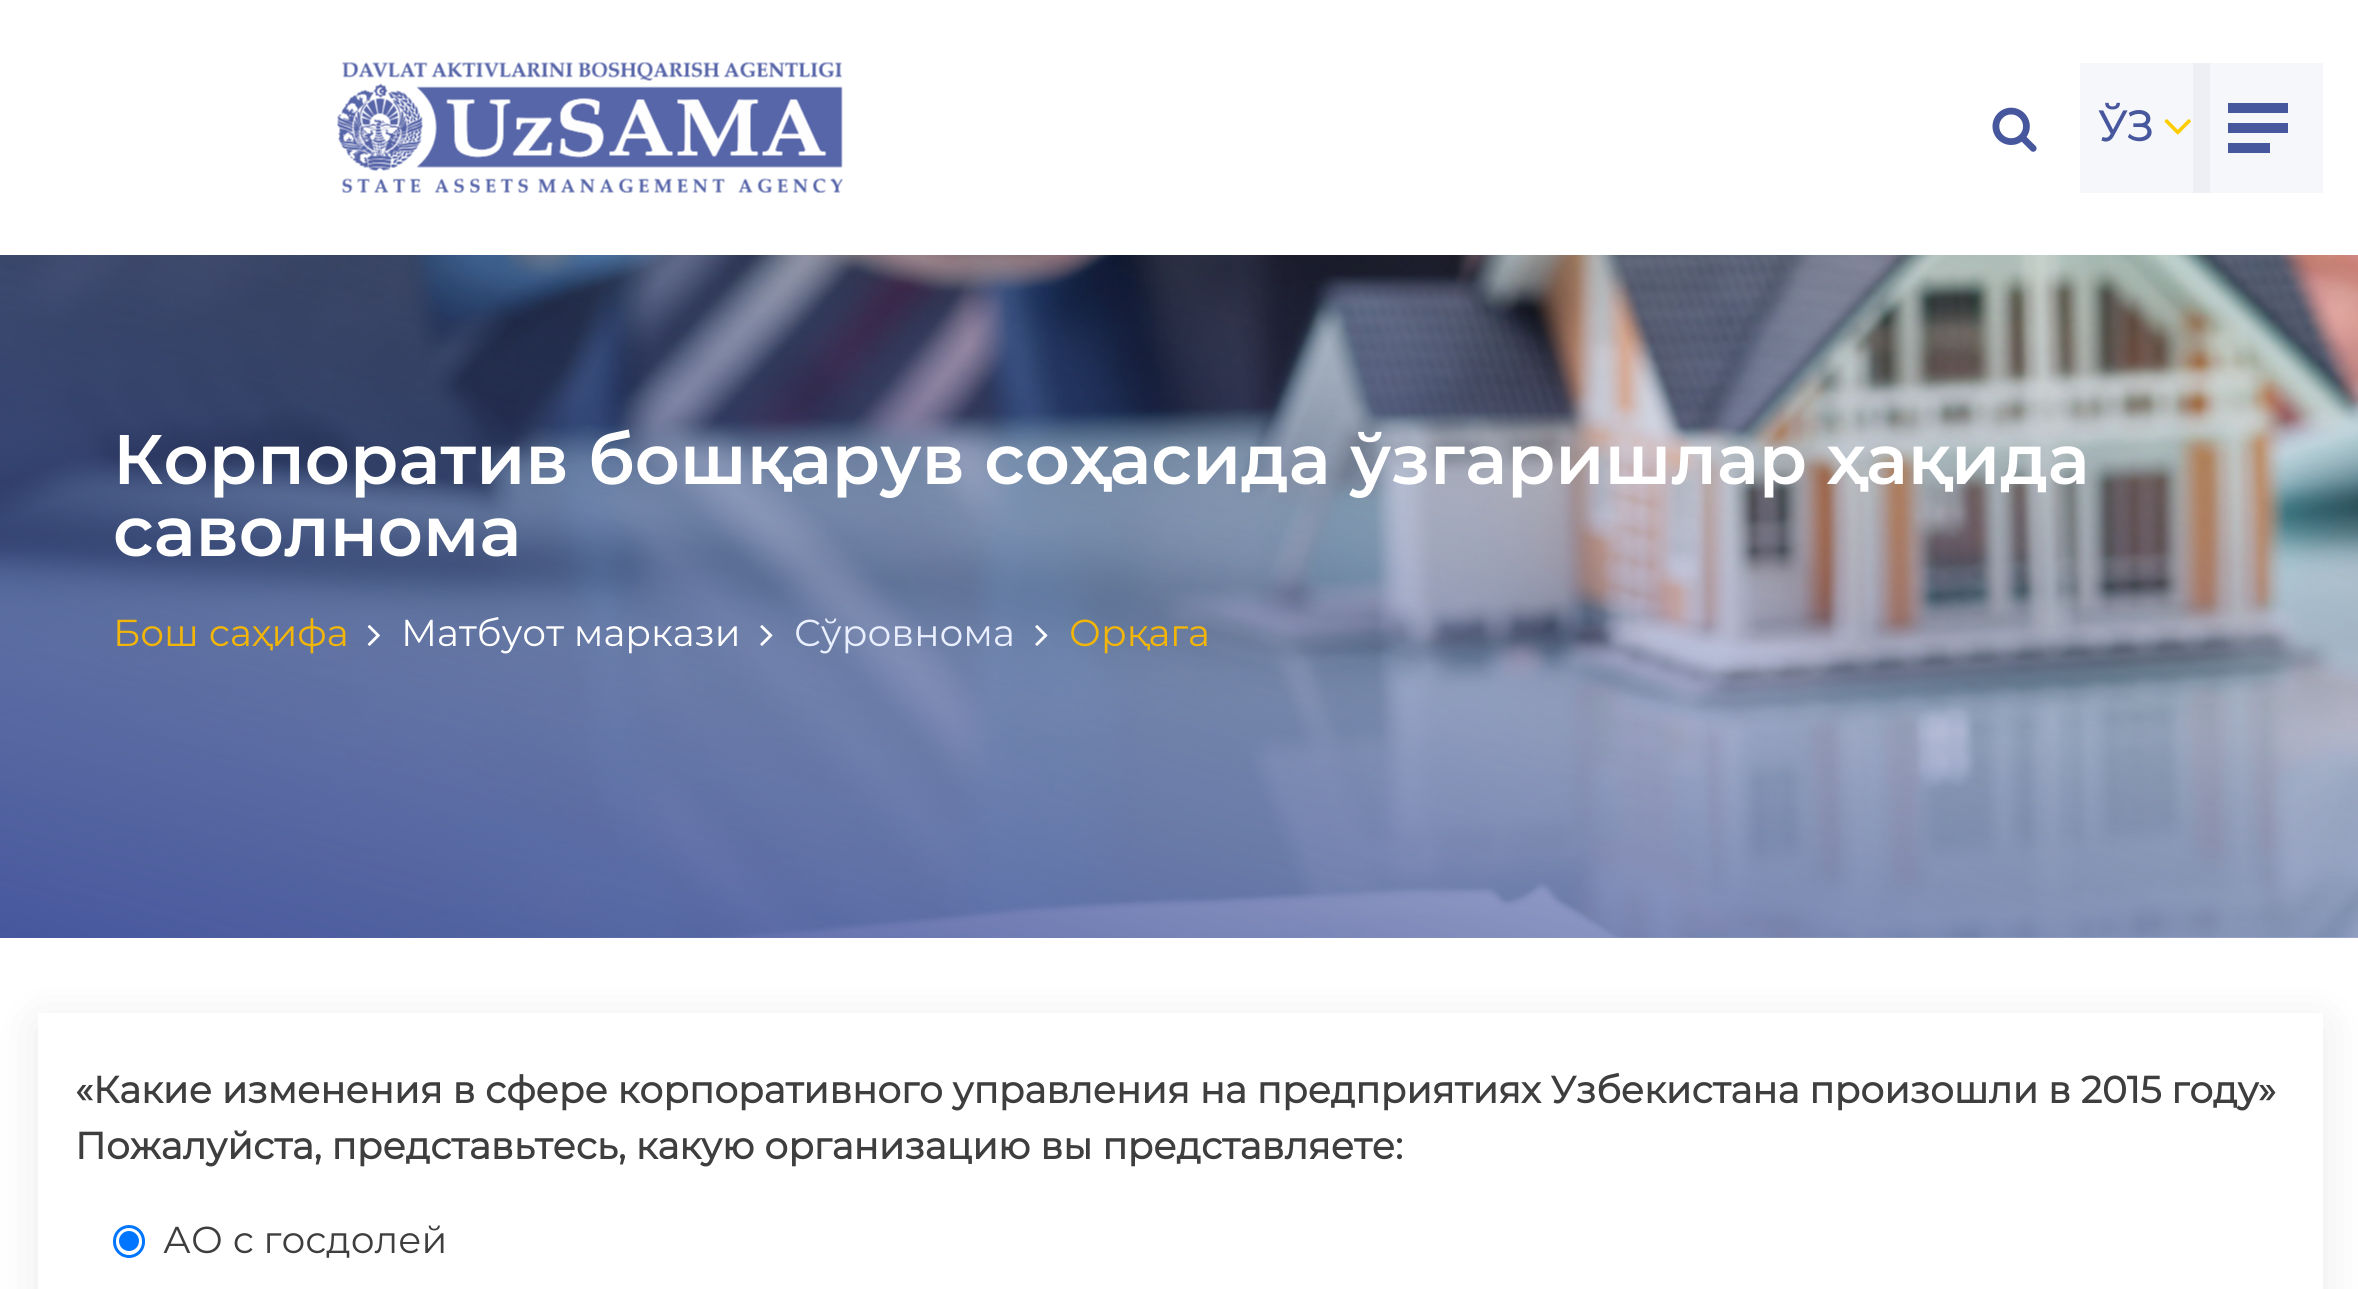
import math
import cairo

surface = cairo.ImageSurface(cairo.Format.RGB24, 2358, 1289)
ctx = cairo.Context(surface)
options = cairo.FontOptions()
options.set_hint_metrics(cairo.HintMetrics.OFF)
options.set_hint_style(cairo.HintStyle.NONE)
ctx.set_font_options(options)
ctx.set_miter_limit(4)


def ink(r, g, b):
    ctx.set_source_rgb(r / 255, g / 255, b / 255)


def write(x, y, s, family, size, color, bold=False, italic=False):
    ctx.select_font_face(family, cairo.FontSlant.ITALIC if italic else cairo.FontSlant.NORMAL, cairo.FontWeight.BOLD if bold else cairo.FontWeight.NORMAL)
    ctx.set_font_size(size)
    ink(*color)
    ctx.move_to(x, y)
    ctx.show_text(s)


def block(x, y, w, h, *color):
    ink(*color)
    ctx.rectangle(x, y, w, h)
    ctx.fill()


def round_path(x, y, w, h, r):
    ctx.new_sub_path()
    for i, (u, v) in enumerate([(x + w - r, y + h - r), (x + r, y + h - r), (x + r, y + r), (x + w - r, y + r)]):
        ctx.arc(u, v, r, i * math.pi / 2, (i + 1) * math.pi / 2)
    ctx.close_path()


def blur_box(x, y, w, h, r, blur, alpha):
    ctx.push_group_with_content(cairo.Content.ALPHA)
    ctx.set_operator(cairo.Operator.SOURCE)
    for i in range(15, -16, -2):
        e = blur * i / 6
        if min(w, h) + 2 * e > 0:
            ctx.set_source_rgba(0, 0, 0, alpha * math.erfc((i - 1) / 8.5) / 2)
            round_path(x - e, y - e, w + 2 * e, h + 2 * e, max(0, min(r + e + blur * .6, min(w, h) / 2 + e)))
            ctx.fill()
    ctx.mask(ctx.pop_group())


def paste(path, x, y, w, h):
    ctx.save()
    ctx.set_source_surface(cairo.ImageSurface.create_from_png(path), x, y)
    ctx.rectangle(x, y, w, h)
    ctx.fill()
    ctx.restore()


s1 = dict(family="Montserrat", size=42, color=(71, 87, 157), bold=True)
s2 = dict(family="Montserrat SemiBold", size=70, color=(255, 255, 255))
s3 = dict(family="Montserrat", size=37.5, color=(243, 182, 8))
s4 = dict(family="Montserrat", size=37.5, color=(255, 255, 255))
s5 = dict(family="Montserrat", size=37.5, color=(234, 239, 255))
s6 = dict(family="Montserrat", size=37.5, color=(62, 62, 62), bold=True)
s7 = dict(family="Montserrat", size=37.5, color=(62, 62, 62))

ink(255, 255, 255)
ctx.paint()
paste("pic1.png", 337, 62, 506, 131)
paste("pic2.png", 1992, 107, 45, 45)
block(2080, 63, 130, 130, 246, 247, 250)
write(2098, 141, "ЎЗ", **s1)
paste("pic3.png", 2164, 119, 27, 16)
ctx.set_source_rgba(0.278, 0.341, 0.62, 0.05)
ctx.rectangle(2193, 63, 130, 130)
ctx.fill()
block(2228, 123, 60, 10, 71, 87, 157)
block(2228, 103, 60, 10, 71, 87, 157)
block(2228, 143, 42, 10, 71, 87, 157)
paste("pic4.png", 0, 255, 2358, 683)
gradient = cairo.LinearGradient(984, 1201, 1376, -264)
gradient.add_color_stop_rgba(0, 0.278, 0.341, 0.616, 1)
gradient.add_color_stop_rgba(0.75, 0.278, 0.341, 0.616, 0)
gradient.add_color_stop_rgba(0.99, 0, 0.435, 0.737, 0)
ctx.set_source(gradient)
ctx.rectangle(0, 255, 2358, 683)
ctx.fill()
write(113, 484, "Корпоратив бошқарув соҳасида ўзгаришлар ҳақида", **s2)
write(113, 556, "саволнома", **s2)
write(113, 646, "Бош саҳифа", **s3)
paste("pic5.png", 367, 625, 13, 21)
write(401, 646, "Матбуот маркази", **s4)
paste("pic6.png", 760, 625, 13, 21)
write(794, 646, "Сўровнома", **s5)
paste("pic7.png", 1035, 625, 13, 21)
write(1069, 646, "Орқага", **s3)
ink(0, 0, 0)
blur_box(38, 1023, 2285, 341, 0, 25, 0.08)
block(38, 1013, 2285, 276, 255, 255, 255)
write(75, 1103, "«Какие изменения в сфере корпоративного управления на предприятиях Узбекистана произошли в 2015 году»", **s6)
write(75, 1159, "Пожалуйста, представьтесь, какую организацию вы представляете:", **s6)
round_path(114.5, 1226.5, 29, 30, 14.5)
ink(0, 117, 255)
ctx.set_line_width(3)
ctx.stroke()
ctx.arc(129, 1241, 10, 0, 2 * math.pi)
ctx.fill()
write(163, 1253, "АО с госдолей", **s7)
surface.write_to_png("screenshot.png")
